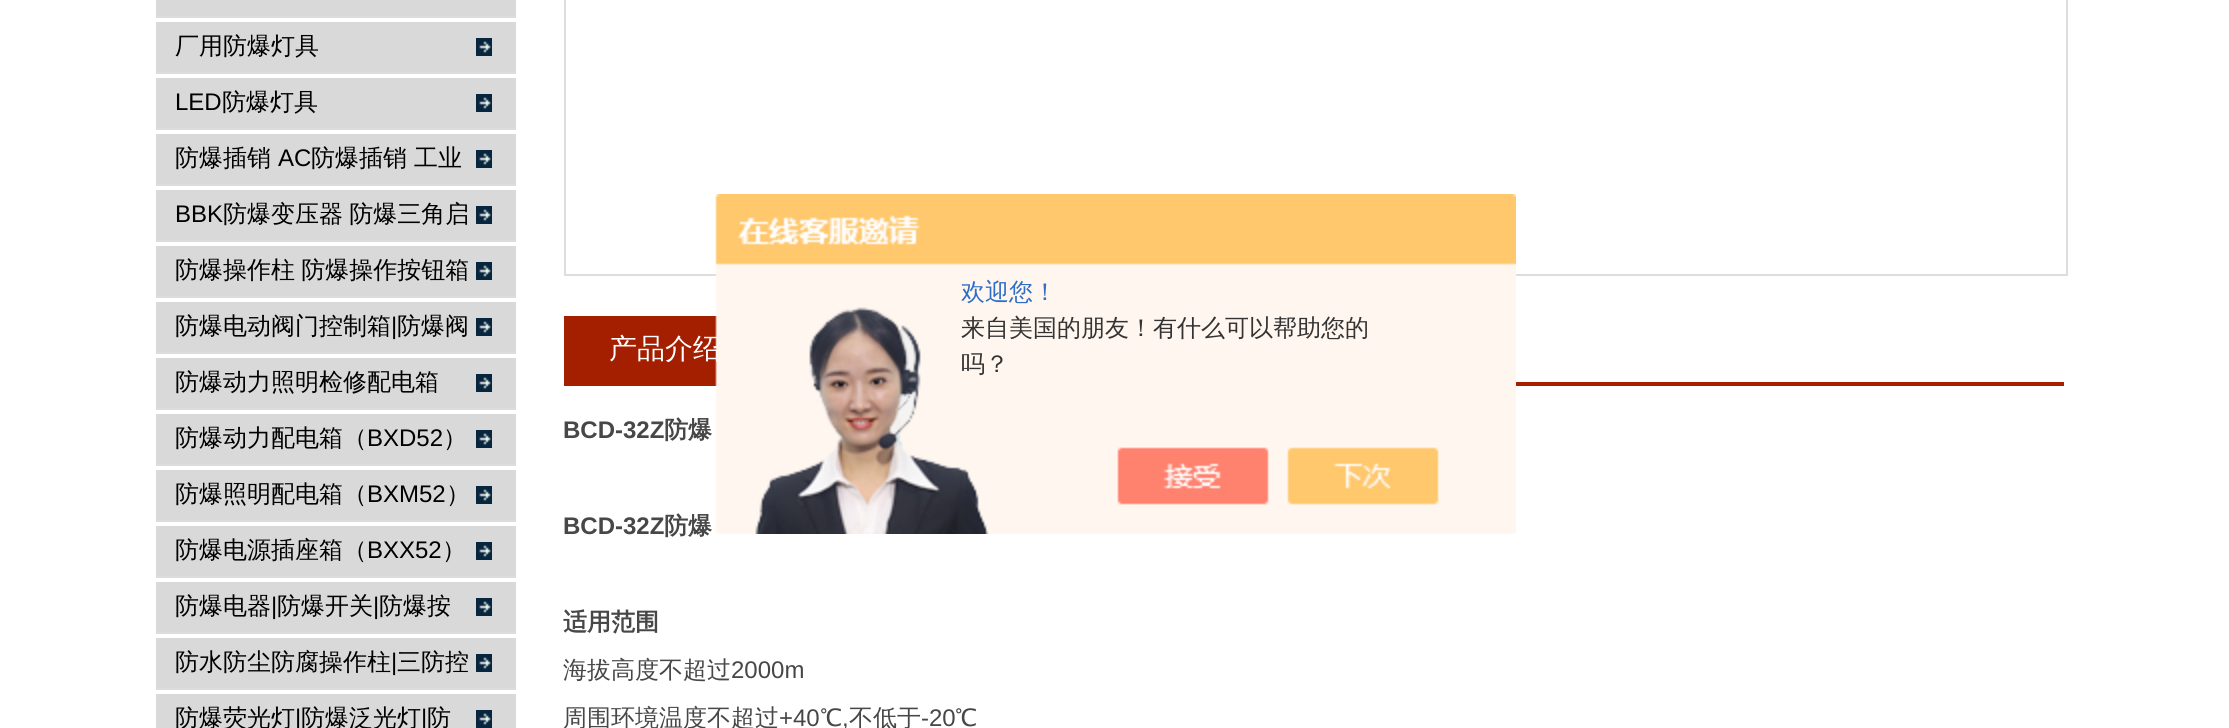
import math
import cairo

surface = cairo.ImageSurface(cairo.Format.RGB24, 2229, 728)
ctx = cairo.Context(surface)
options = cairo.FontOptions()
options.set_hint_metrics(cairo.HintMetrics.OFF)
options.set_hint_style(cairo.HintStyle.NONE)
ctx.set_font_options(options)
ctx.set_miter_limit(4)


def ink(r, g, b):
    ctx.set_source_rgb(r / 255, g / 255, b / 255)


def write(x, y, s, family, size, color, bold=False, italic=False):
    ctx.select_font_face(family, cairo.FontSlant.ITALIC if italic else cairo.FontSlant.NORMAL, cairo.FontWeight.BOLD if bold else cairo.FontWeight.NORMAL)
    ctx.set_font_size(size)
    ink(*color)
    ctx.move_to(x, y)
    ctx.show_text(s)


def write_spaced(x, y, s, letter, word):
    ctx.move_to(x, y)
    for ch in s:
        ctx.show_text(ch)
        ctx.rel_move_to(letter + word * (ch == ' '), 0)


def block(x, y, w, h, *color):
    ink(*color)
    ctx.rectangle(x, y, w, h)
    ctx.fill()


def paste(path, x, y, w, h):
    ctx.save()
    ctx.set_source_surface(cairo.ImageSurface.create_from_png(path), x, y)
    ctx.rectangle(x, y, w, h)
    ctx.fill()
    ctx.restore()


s1 = dict(family="WenQuanYi Zen Hei Medium", size=24, color=(0, 0, 0))
s2 = dict(family="Liberation Sans", size=24, color=(0, 0, 0))
s3 = dict(family="WenQuanYi Zen Hei Medium", size=28, color=(255, 255, 255))
s4 = dict(family="Liberation Sans", size=24, color=(71, 71, 71), bold=True)
s5 = dict(family="WenQuanYi Zen Hei", size=24, color=(71, 71, 71), bold=True)
s6 = dict(family="WenQuanYi Zen Hei Medium", size=24, color=(71, 71, 71))
s7 = dict(family="Liberation Sans", size=24, color=(71, 71, 71))
s8 = dict(family="WenQuanYi Zen Hei Medium", size=24, color=(46, 110, 198))
s9 = dict(family="WenQuanYi Zen Hei Medium", size=24, color=(51, 51, 51))

ink(255, 255, 255)
ctx.paint()
block(156, 0, 360, 16, 217, 217, 217)
block(156, 16, 360, 2, 221, 221, 221)
block(156, 22, 360, 50, 217, 217, 217)
paste("pic1.png", 476, 38, 16, 18)
block(156, 72, 360, 2, 221, 221, 221)
write(175, 54, "厂用防爆灯具", **s1)
block(156, 78, 360, 50, 217, 217, 217)
paste("pic1.png", 476, 94, 16, 18)
block(156, 128, 360, 2, 221, 221, 221)
write(175, 110, "LED", **s2)
write(222, 110, "防爆灯具", **s1)
block(156, 134, 360, 50, 217, 217, 217)
paste("pic1.png", 476, 150, 16, 18)
block(156, 184, 360, 2, 221, 221, 221)
write(175, 166, "防爆插销", **s1)
write(278, 166, "AC", **s2)
write(311, 166, "防爆插销", **s1)
write(414, 166, "工业", **s1)
block(156, 190, 360, 50, 217, 217, 217)
paste("pic1.png", 476, 206, 16, 18)
block(156, 240, 360, 2, 221, 221, 221)
write(175, 222, "BBK", **s2)
ctx.select_font_face("WenQuanYi Zen Hei Medium")
write_spaced(223, 222, "防爆变压器 防爆三角启", 0, -1)
block(156, 246, 360, 50, 217, 217, 217)
paste("pic1.png", 476, 262, 16, 18)
block(156, 296, 360, 2, 221, 221, 221)
ink(0, 0, 0)
write_spaced(175, 278, "防爆操作柱 防爆操作按钮箱", 0, -1)
block(156, 302, 360, 50, 217, 217, 217)
paste("pic1.png", 476, 318, 16, 18)
block(156, 352, 360, 2, 221, 221, 221)
write(175, 334, "防爆电动阀门控制箱", **s1)
write(391, 334, "|", **s2)
write(397, 334, "防爆阀", **s1)
block(156, 358, 360, 50, 217, 217, 217)
paste("pic1.png", 476, 374, 16, 18)
block(156, 408, 360, 2, 221, 221, 221)
write(175, 390, "防爆动力照明检修配电箱", **s1)
block(156, 414, 360, 50, 217, 217, 217)
paste("pic1.png", 476, 430, 16, 18)
block(156, 464, 360, 2, 221, 221, 221)
write(175, 446, "防爆动力配电箱（", **s1)
write(367, 446, "BXD52", **s2)
write(443, 446, "）", **s1)
block(156, 470, 360, 50, 217, 217, 217)
paste("pic1.png", 476, 486, 16, 18)
block(156, 520, 360, 2, 221, 221, 221)
write(175, 502, "防爆照明配电箱（", **s1)
write(367, 502, "BXM52", **s2)
write(446, 502, "）", **s1)
block(156, 526, 360, 50, 217, 217, 217)
paste("pic1.png", 476, 542, 16, 18)
block(156, 576, 360, 2, 221, 221, 221)
write(175, 558, "防爆电源插座箱（", **s1)
write(367, 558, "BXX52", **s2)
write(442, 558, "）", **s1)
block(156, 582, 360, 50, 217, 217, 217)
paste("pic1.png", 476, 598, 16, 18)
block(156, 632, 360, 2, 221, 221, 221)
write(175, 614, "防爆电器", **s1)
write(271, 614, "|", **s2)
write(277, 614, "防爆开关", **s1)
write(373, 614, "|", **s2)
write(379, 614, "防爆按", **s1)
block(156, 638, 360, 50, 217, 217, 217)
paste("pic1.png", 476, 654, 16, 18)
block(156, 688, 360, 2, 221, 221, 221)
write(175, 670, "防水防尘防腐操作柱", **s1)
write(391, 670, "|", **s2)
write(397, 670, "三防控", **s1)
block(156, 694, 360, 34, 217, 217, 217)
paste("pic1.png", 476, 710, 16, 18)
write(175, 726, "防爆荧光灯", **s1)
write(295, 726, "|", **s2)
write(301, 726, "防爆泛光灯", **s1)
write(421, 726, "|", **s2)
write(427, 726, "防", **s1)
ctx.rectangle(565, -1, 1502, 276)
ink(221, 221, 221)
ctx.stroke()
block(564, 382, 1500, 4, 164, 30, 0)
block(564, 316, 153, 66, 164, 30, 0)
write(609, 358, "产品介绍", **s3)
write(563, 438, "BCD-32Z", **s4)
write(664, 438, "防爆", **s5)
write(563, 534, "BCD-32Z", **s4)
write(664, 534, "防爆", **s5)
write(563, 630, "适用范围", **s5)
write(563, 678, "海拔高度不超过", **s6)
write(731, 678, "2000m", **s7)
write(563, 726, "周围环境温度不超过", **s6)
write(779, 726, "+40", **s7)
write(820, 726, "℃", **s6)
write(842, 726, ",", **s7)
write(849, 726, "不低于", **s6)
write(921, 726, "-20", **s7)
write(955, 726, "℃", **s6)
paste("pic2.png", 715, 194, 801, 340)
write(961, 300, "欢迎您！", **s8)
write(961, 336, "来自美国的朋友！有什么可以帮助您的", **s9)
write(961, 372, "吗？", **s9)
surface.write_to_png("screenshot.png")
